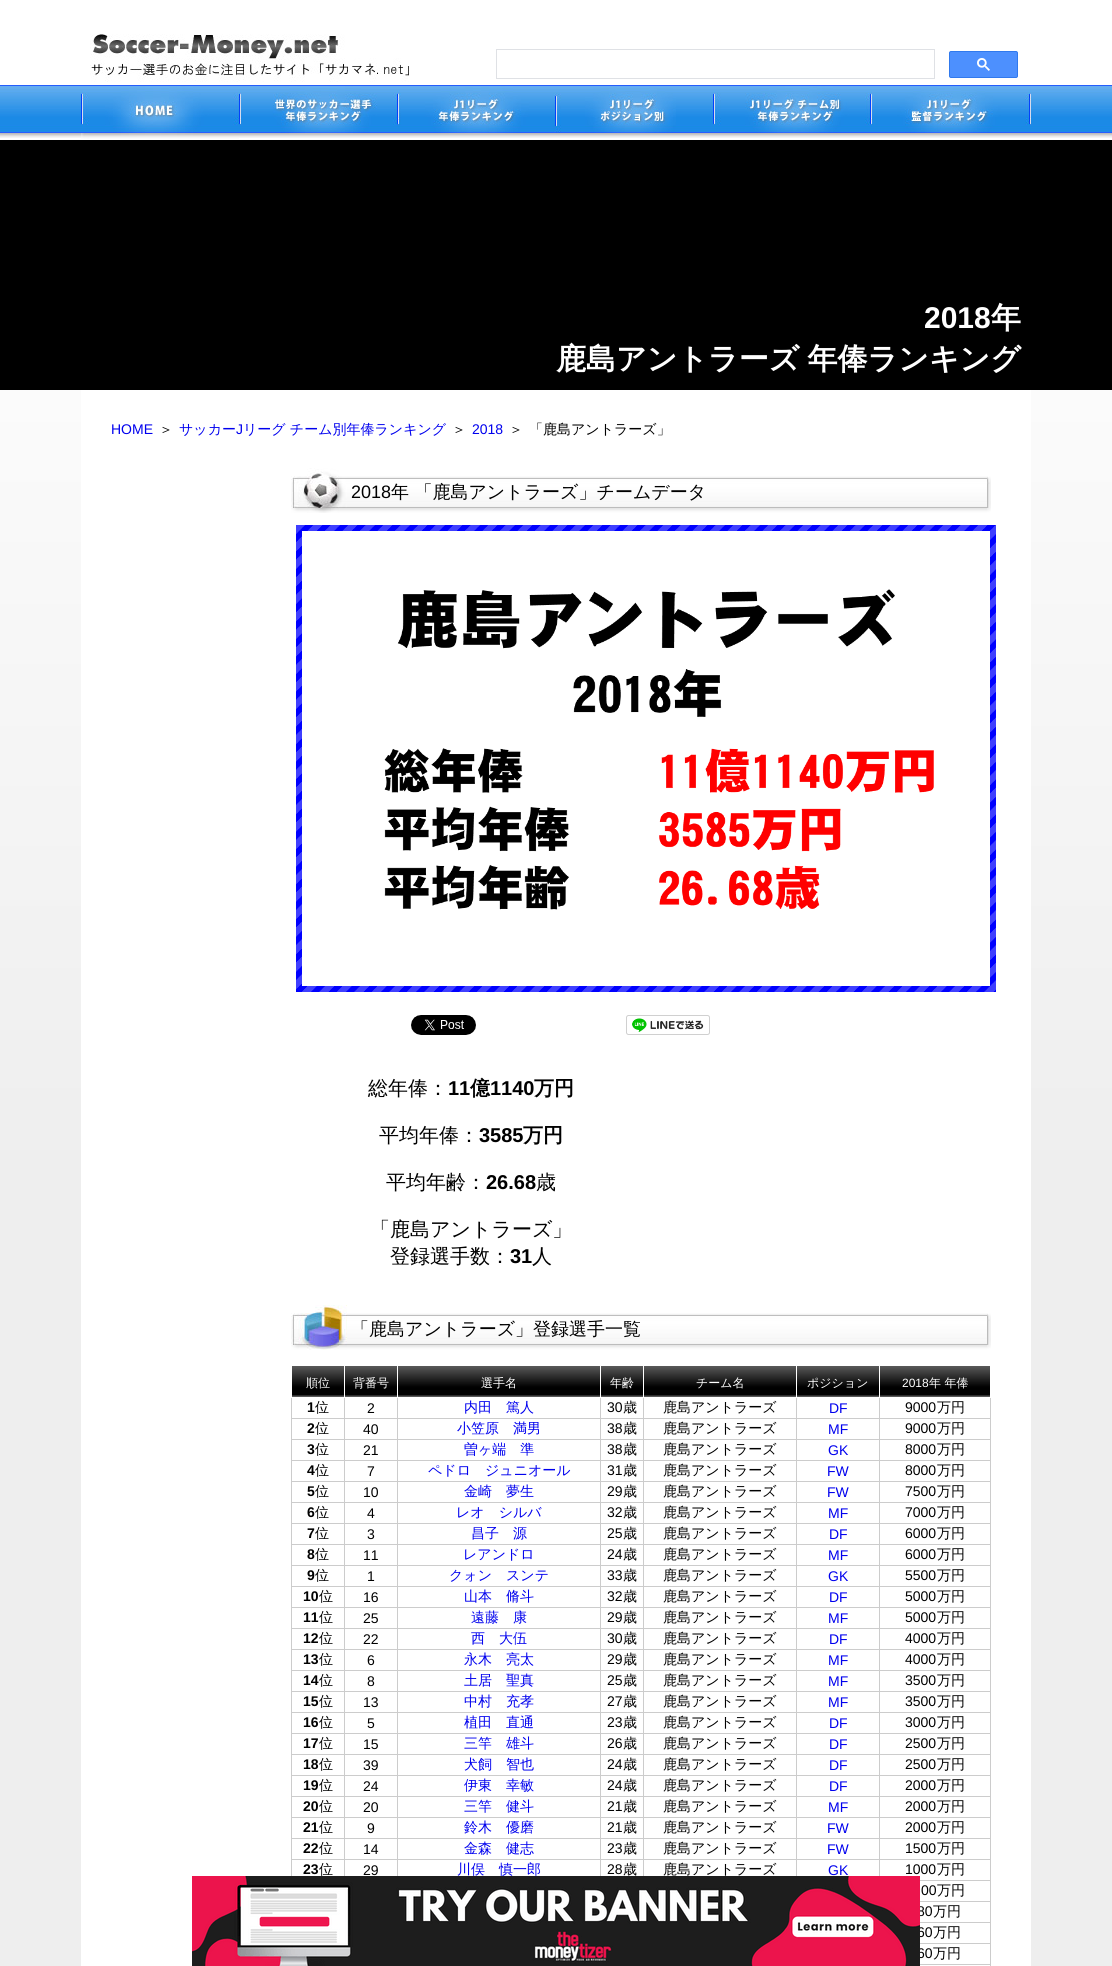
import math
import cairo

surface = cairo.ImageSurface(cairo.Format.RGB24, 1112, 1966)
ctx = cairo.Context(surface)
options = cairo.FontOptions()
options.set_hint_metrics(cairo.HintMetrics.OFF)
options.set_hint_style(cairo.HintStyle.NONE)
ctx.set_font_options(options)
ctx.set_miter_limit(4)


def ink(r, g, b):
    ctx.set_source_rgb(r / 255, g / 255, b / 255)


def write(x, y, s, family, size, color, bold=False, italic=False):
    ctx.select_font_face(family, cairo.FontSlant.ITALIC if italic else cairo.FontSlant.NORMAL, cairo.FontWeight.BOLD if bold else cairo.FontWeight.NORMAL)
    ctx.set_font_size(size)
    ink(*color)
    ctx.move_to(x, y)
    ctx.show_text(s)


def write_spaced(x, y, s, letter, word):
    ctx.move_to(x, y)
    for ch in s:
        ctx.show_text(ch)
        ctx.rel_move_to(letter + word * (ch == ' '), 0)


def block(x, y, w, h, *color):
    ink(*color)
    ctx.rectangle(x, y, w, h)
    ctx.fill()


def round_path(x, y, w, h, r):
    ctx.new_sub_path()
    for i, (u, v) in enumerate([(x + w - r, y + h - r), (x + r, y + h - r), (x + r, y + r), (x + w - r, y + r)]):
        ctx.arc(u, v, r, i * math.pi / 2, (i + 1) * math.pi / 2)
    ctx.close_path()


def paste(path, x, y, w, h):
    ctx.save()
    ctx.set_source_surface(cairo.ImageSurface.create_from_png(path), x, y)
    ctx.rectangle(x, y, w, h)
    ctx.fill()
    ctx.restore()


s1 = dict(family="Liberation Sans", size=30, color=(255, 255, 255), bold=True)
s2 = dict(family="WenQuanYi Zen Hei", size=30, color=(255, 255, 255), bold=True)
s3 = dict(family="Liberation Sans", size=14, color=(0, 0, 238))
s4 = dict(family="WenQuanYi Zen Hei Medium", size=14, color=(0, 0, 0))
s5 = dict(family="WenQuanYi Zen Hei Medium", size=14, color=(0, 0, 238))
s6 = dict(family="Liberation Sans", size=18, color=(0, 0, 0))
s7 = dict(family="WenQuanYi Zen Hei Medium", size=18, color=(0, 0, 0))
s8 = dict(family="WenQuanYi Zen Hei Medium", size=20, color=(0, 0, 0))
s9 = dict(family="Liberation Sans", size=20, color=(0, 0, 0), bold=True)
s10 = dict(family="WenQuanYi Zen Hei", size=20, color=(0, 0, 0), bold=True)
s11 = dict(family="WenQuanYi Zen Hei Medium", size=12, color=(255, 255, 255))
s12 = dict(family="Liberation Sans", size=12, color=(255, 255, 255))
s13 = dict(family="Liberation Sans", size=14, color=(0, 0, 0), bold=True)
s14 = dict(family="Liberation Sans", size=14, color=(0, 0, 0))

ink(255, 255, 255)
ctx.paint()
paste("pic1.png", 90, 34, 319, 48)
ctx.rectangle(496.5, 49.5, 438, 29)
ink(223, 225, 229)
ctx.set_line_width(1)
ctx.stroke()
ink(77, 144, 254)
round_path(949.5, 51.5, 68, 26, 1.5)
ctx.fill_preserve()
ink(48, 121, 237)
ctx.stroke()
paste("pic2.png", 977, 58, 13, 13)
paste("pic3.png", 0, 85, 1112, 53)
paste("pic4.png", 81, 86, 158, 53)
paste("pic5.png", 239, 86, 158, 48)
paste("pic6.png", 397, 86, 158, 48)
paste("pic7.png", 555, 87, 121, 46)
paste("pic8.png", 713, 86, 158, 47)
paste("pic9.png", 871, 87, 160, 46)
block(0, 140, 1112, 250, 0, 0, 0)
write(924, 328, "2018", **s1)
write(991, 328, "年", **s2)
write_spaced(556, 369, "鹿島アントラーズ 年俸ランキング", 0, -1)
block(0, 1390, 1112, 576, 238, 238, 238)
paste("pic10.png", 0, 390, 1112, 1000)
block(81, 390, 950, 1576, 255, 255, 255)
write(111, 434, "HOME", **s3)
write(159, 434, "＞", **s4)
write(179, 434, "サッカー", **s5)
write(236, 434, "J", **s3)
write(243, 434, "リーグ チーム別年俸ランキング", **s5)
write(452, 434, "＞", **s4)
write(472, 434, "2018", **s3)
write(509, 434, "＞", **s4)
write(529, 434, "「鹿島アントラーズ」", **s4)
paste("pic11.png", 291, 468, 700, 45)
write(351, 498, "2018", **s6)
write(391, 498, "年 「鹿島アントラーズ」チームデータ", **s7)
paste("pic12.png", 296, 525, 700, 467)
paste("pic13.png", 411, 1015, 65, 20)
paste("pic14.png", 626, 1015, 84, 20)
write(368, 1095, "総年俸：", **s8)
write(448, 1095, "11", **s9)
write(470, 1095, "億", **s10)
write(490, 1095, "1140", **s9)
write(534, 1095, "万円", **s10)
write(379, 1142, "平均年俸：", **s8)
write(479, 1142, "3585", **s9)
write(523, 1142, "万円", **s10)
write(386, 1189, "平均年齢：", **s8)
write(486, 1189, "26.68", **s9)
write(536, 1189, "歳", **s8)
write(370, 1236, "「鹿島アントラーズ」", **s8)
write(390, 1263, "登録選手数：", **s8)
write(510, 1263, "31", **s9)
write(532, 1263, "人", **s8)
paste("pic15.png", 291, 1305, 700, 45)
write(351, 1335, "「鹿島アントラーズ」登録選手一覧", **s7)
block(990, 1398, 1, 568, 204, 204, 204)
block(291, 1398, 1, 478, 204, 204, 204)
paste("pic16.png", 292, 1366, 52, 31)
write(306, 1387, "順位", **s11)
paste("pic16.png", 345, 1366, 52, 31)
block(879, 1418, 112, 1, 204, 204, 204)
block(879, 1439, 112, 1, 204, 204, 204)
block(879, 1460, 112, 1, 204, 204, 204)
block(879, 1481, 112, 1, 204, 204, 204)
block(879, 1502, 112, 1, 204, 204, 204)
block(879, 1523, 112, 1, 204, 204, 204)
block(879, 1544, 112, 1, 204, 204, 204)
block(879, 1565, 112, 1, 204, 204, 204)
block(879, 1586, 112, 1, 204, 204, 204)
block(879, 1607, 112, 1, 204, 204, 204)
block(879, 1628, 112, 1, 204, 204, 204)
block(879, 1649, 112, 1, 204, 204, 204)
block(879, 1670, 112, 1, 204, 204, 204)
block(879, 1691, 112, 1, 204, 204, 204)
block(879, 1712, 112, 1, 204, 204, 204)
block(879, 1733, 112, 1, 204, 204, 204)
block(879, 1754, 112, 1, 204, 204, 204)
block(879, 1775, 112, 1, 204, 204, 204)
block(879, 1796, 112, 1, 204, 204, 204)
block(879, 1817, 112, 1, 204, 204, 204)
block(879, 1838, 112, 1, 204, 204, 204)
block(879, 1859, 112, 1, 204, 204, 204)
block(879, 1859, 1, 22, 204, 204, 204)
block(796, 1859, 84, 1, 204, 204, 204)
block(879, 1838, 1, 22, 204, 204, 204)
block(796, 1838, 84, 1, 204, 204, 204)
block(879, 1817, 1, 22, 204, 204, 204)
block(796, 1817, 84, 1, 204, 204, 204)
block(879, 1796, 1, 22, 204, 204, 204)
block(796, 1796, 84, 1, 204, 204, 204)
block(879, 1775, 1, 22, 204, 204, 204)
block(796, 1775, 84, 1, 204, 204, 204)
block(879, 1754, 1, 22, 204, 204, 204)
block(796, 1754, 84, 1, 204, 204, 204)
block(879, 1733, 1, 22, 204, 204, 204)
block(796, 1733, 84, 1, 204, 204, 204)
block(879, 1712, 1, 22, 204, 204, 204)
block(796, 1712, 84, 1, 204, 204, 204)
block(879, 1691, 1, 22, 204, 204, 204)
block(796, 1691, 84, 1, 204, 204, 204)
block(879, 1670, 1, 22, 204, 204, 204)
block(796, 1670, 84, 1, 204, 204, 204)
block(879, 1649, 1, 22, 204, 204, 204)
block(796, 1649, 84, 1, 204, 204, 204)
block(879, 1628, 1, 22, 204, 204, 204)
block(796, 1628, 84, 1, 204, 204, 204)
block(879, 1607, 1, 22, 204, 204, 204)
block(796, 1607, 84, 1, 204, 204, 204)
block(879, 1586, 1, 22, 204, 204, 204)
block(796, 1586, 84, 1, 204, 204, 204)
block(879, 1565, 1, 22, 204, 204, 204)
block(796, 1565, 84, 1, 204, 204, 204)
block(879, 1544, 1, 22, 204, 204, 204)
block(796, 1544, 84, 1, 204, 204, 204)
block(879, 1523, 1, 22, 204, 204, 204)
block(796, 1523, 84, 1, 204, 204, 204)
block(879, 1502, 1, 22, 204, 204, 204)
block(796, 1502, 84, 1, 204, 204, 204)
block(879, 1481, 1, 22, 204, 204, 204)
block(796, 1481, 84, 1, 204, 204, 204)
block(879, 1460, 1, 22, 204, 204, 204)
block(796, 1460, 84, 1, 204, 204, 204)
block(879, 1439, 1, 22, 204, 204, 204)
block(796, 1439, 84, 1, 204, 204, 204)
block(879, 1418, 1, 22, 204, 204, 204)
block(796, 1418, 84, 1, 204, 204, 204)
block(796, 1859, 1, 22, 204, 204, 204)
block(643, 1859, 154, 1, 204, 204, 204)
block(796, 1838, 1, 22, 204, 204, 204)
block(643, 1838, 154, 1, 204, 204, 204)
block(796, 1817, 1, 22, 204, 204, 204)
block(643, 1817, 154, 1, 204, 204, 204)
block(796, 1796, 1, 22, 204, 204, 204)
block(643, 1796, 154, 1, 204, 204, 204)
block(796, 1775, 1, 22, 204, 204, 204)
block(643, 1775, 154, 1, 204, 204, 204)
block(796, 1754, 1, 22, 204, 204, 204)
block(643, 1754, 154, 1, 204, 204, 204)
block(796, 1733, 1, 22, 204, 204, 204)
block(643, 1733, 154, 1, 204, 204, 204)
block(796, 1712, 1, 22, 204, 204, 204)
block(643, 1712, 154, 1, 204, 204, 204)
block(796, 1691, 1, 22, 204, 204, 204)
block(643, 1691, 154, 1, 204, 204, 204)
block(796, 1670, 1, 22, 204, 204, 204)
block(643, 1670, 154, 1, 204, 204, 204)
block(796, 1649, 1, 22, 204, 204, 204)
block(643, 1649, 154, 1, 204, 204, 204)
block(796, 1628, 1, 22, 204, 204, 204)
block(643, 1628, 154, 1, 204, 204, 204)
block(796, 1607, 1, 22, 204, 204, 204)
block(643, 1607, 154, 1, 204, 204, 204)
block(796, 1586, 1, 22, 204, 204, 204)
block(643, 1586, 154, 1, 204, 204, 204)
block(796, 1565, 1, 22, 204, 204, 204)
block(643, 1565, 154, 1, 204, 204, 204)
block(796, 1544, 1, 22, 204, 204, 204)
block(643, 1544, 154, 1, 204, 204, 204)
block(796, 1523, 1, 22, 204, 204, 204)
block(643, 1523, 154, 1, 204, 204, 204)
block(796, 1502, 1, 22, 204, 204, 204)
block(643, 1502, 154, 1, 204, 204, 204)
block(796, 1481, 1, 22, 204, 204, 204)
block(643, 1481, 154, 1, 204, 204, 204)
block(796, 1460, 1, 22, 204, 204, 204)
block(643, 1460, 154, 1, 204, 204, 204)
block(796, 1439, 1, 22, 204, 204, 204)
block(643, 1439, 154, 1, 204, 204, 204)
block(796, 1418, 1, 22, 204, 204, 204)
block(643, 1418, 154, 1, 204, 204, 204)
block(643, 1859, 1, 22, 204, 204, 204)
block(600, 1859, 44, 1, 204, 204, 204)
block(643, 1838, 1, 22, 204, 204, 204)
block(600, 1838, 44, 1, 204, 204, 204)
block(643, 1817, 1, 22, 204, 204, 204)
block(600, 1817, 44, 1, 204, 204, 204)
block(643, 1796, 1, 22, 204, 204, 204)
block(600, 1796, 44, 1, 204, 204, 204)
block(643, 1775, 1, 22, 204, 204, 204)
block(600, 1775, 44, 1, 204, 204, 204)
block(643, 1754, 1, 22, 204, 204, 204)
block(600, 1754, 44, 1, 204, 204, 204)
block(643, 1733, 1, 22, 204, 204, 204)
block(600, 1733, 44, 1, 204, 204, 204)
block(643, 1712, 1, 22, 204, 204, 204)
block(600, 1712, 44, 1, 204, 204, 204)
block(643, 1691, 1, 22, 204, 204, 204)
block(600, 1691, 44, 1, 204, 204, 204)
block(643, 1670, 1, 22, 204, 204, 204)
block(600, 1670, 44, 1, 204, 204, 204)
block(643, 1649, 1, 22, 204, 204, 204)
block(600, 1649, 44, 1, 204, 204, 204)
block(643, 1628, 1, 22, 204, 204, 204)
block(600, 1628, 44, 1, 204, 204, 204)
block(643, 1607, 1, 22, 204, 204, 204)
block(600, 1607, 44, 1, 204, 204, 204)
block(643, 1586, 1, 22, 204, 204, 204)
block(600, 1586, 44, 1, 204, 204, 204)
block(643, 1565, 1, 22, 204, 204, 204)
block(600, 1565, 44, 1, 204, 204, 204)
block(643, 1544, 1, 22, 204, 204, 204)
block(600, 1544, 44, 1, 204, 204, 204)
block(643, 1523, 1, 22, 204, 204, 204)
block(600, 1523, 44, 1, 204, 204, 204)
block(643, 1502, 1, 22, 204, 204, 204)
block(600, 1502, 44, 1, 204, 204, 204)
block(643, 1481, 1, 22, 204, 204, 204)
block(600, 1481, 44, 1, 204, 204, 204)
block(643, 1460, 1, 22, 204, 204, 204)
block(600, 1460, 44, 1, 204, 204, 204)
block(643, 1439, 1, 22, 204, 204, 204)
block(600, 1439, 44, 1, 204, 204, 204)
block(643, 1418, 1, 22, 204, 204, 204)
block(600, 1418, 44, 1, 204, 204, 204)
block(600, 1859, 1, 22, 204, 204, 204)
block(397, 1859, 204, 1, 204, 204, 204)
block(600, 1838, 1, 22, 204, 204, 204)
block(397, 1838, 204, 1, 204, 204, 204)
block(600, 1817, 1, 22, 204, 204, 204)
block(397, 1817, 204, 1, 204, 204, 204)
block(600, 1796, 1, 22, 204, 204, 204)
block(397, 1796, 204, 1, 204, 204, 204)
block(600, 1775, 1, 22, 204, 204, 204)
block(397, 1775, 204, 1, 204, 204, 204)
block(600, 1754, 1, 22, 204, 204, 204)
block(397, 1754, 204, 1, 204, 204, 204)
block(600, 1733, 1, 22, 204, 204, 204)
block(397, 1733, 204, 1, 204, 204, 204)
block(600, 1712, 1, 22, 204, 204, 204)
block(397, 1712, 204, 1, 204, 204, 204)
block(600, 1691, 1, 22, 204, 204, 204)
block(397, 1691, 204, 1, 204, 204, 204)
block(600, 1670, 1, 22, 204, 204, 204)
block(397, 1670, 204, 1, 204, 204, 204)
block(600, 1649, 1, 22, 204, 204, 204)
block(397, 1649, 204, 1, 204, 204, 204)
block(600, 1628, 1, 22, 204, 204, 204)
block(397, 1628, 204, 1, 204, 204, 204)
block(600, 1607, 1, 22, 204, 204, 204)
block(397, 1607, 204, 1, 204, 204, 204)
block(600, 1586, 1, 22, 204, 204, 204)
block(397, 1586, 204, 1, 204, 204, 204)
block(600, 1565, 1, 22, 204, 204, 204)
block(397, 1565, 204, 1, 204, 204, 204)
block(600, 1544, 1, 22, 204, 204, 204)
block(397, 1544, 204, 1, 204, 204, 204)
block(600, 1523, 1, 22, 204, 204, 204)
block(397, 1523, 204, 1, 204, 204, 204)
block(600, 1502, 1, 22, 204, 204, 204)
block(397, 1502, 204, 1, 204, 204, 204)
block(600, 1481, 1, 22, 204, 204, 204)
block(397, 1481, 204, 1, 204, 204, 204)
block(600, 1460, 1, 22, 204, 204, 204)
block(397, 1460, 204, 1, 204, 204, 204)
block(600, 1439, 1, 22, 204, 204, 204)
block(397, 1439, 204, 1, 204, 204, 204)
block(600, 1418, 1, 22, 204, 204, 204)
block(397, 1418, 204, 1, 204, 204, 204)
block(397, 1859, 1, 22, 204, 204, 204)
block(344, 1859, 54, 1, 204, 204, 204)
block(397, 1838, 1, 22, 204, 204, 204)
block(344, 1838, 54, 1, 204, 204, 204)
block(397, 1817, 1, 22, 204, 204, 204)
block(344, 1817, 54, 1, 204, 204, 204)
block(397, 1796, 1, 22, 204, 204, 204)
block(344, 1796, 54, 1, 204, 204, 204)
block(397, 1775, 1, 22, 204, 204, 204)
block(344, 1775, 54, 1, 204, 204, 204)
block(397, 1754, 1, 22, 204, 204, 204)
block(344, 1754, 54, 1, 204, 204, 204)
block(397, 1733, 1, 22, 204, 204, 204)
block(344, 1733, 54, 1, 204, 204, 204)
block(397, 1712, 1, 22, 204, 204, 204)
block(344, 1712, 54, 1, 204, 204, 204)
block(397, 1691, 1, 22, 204, 204, 204)
block(344, 1691, 54, 1, 204, 204, 204)
block(397, 1670, 1, 22, 204, 204, 204)
block(344, 1670, 54, 1, 204, 204, 204)
block(397, 1649, 1, 22, 204, 204, 204)
block(344, 1649, 54, 1, 204, 204, 204)
block(397, 1628, 1, 22, 204, 204, 204)
block(344, 1628, 54, 1, 204, 204, 204)
block(397, 1607, 1, 22, 204, 204, 204)
block(344, 1607, 54, 1, 204, 204, 204)
block(397, 1586, 1, 22, 204, 204, 204)
block(344, 1586, 54, 1, 204, 204, 204)
block(397, 1565, 1, 22, 204, 204, 204)
block(344, 1565, 54, 1, 204, 204, 204)
block(397, 1544, 1, 22, 204, 204, 204)
block(344, 1544, 54, 1, 204, 204, 204)
block(397, 1523, 1, 22, 204, 204, 204)
block(344, 1523, 54, 1, 204, 204, 204)
block(397, 1502, 1, 22, 204, 204, 204)
block(344, 1502, 54, 1, 204, 204, 204)
block(397, 1481, 1, 22, 204, 204, 204)
block(344, 1481, 54, 1, 204, 204, 204)
block(397, 1460, 1, 22, 204, 204, 204)
block(344, 1460, 54, 1, 204, 204, 204)
block(397, 1439, 1, 22, 204, 204, 204)
block(344, 1439, 54, 1, 204, 204, 204)
block(397, 1418, 1, 22, 204, 204, 204)
block(344, 1418, 54, 1, 204, 204, 204)
block(344, 1859, 1, 22, 204, 204, 204)
block(291, 1859, 54, 1, 204, 204, 204)
block(344, 1838, 1, 22, 204, 204, 204)
block(291, 1838, 54, 1, 204, 204, 204)
block(344, 1817, 1, 22, 204, 204, 204)
block(291, 1817, 54, 1, 204, 204, 204)
block(344, 1796, 1, 22, 204, 204, 204)
block(291, 1796, 54, 1, 204, 204, 204)
block(344, 1775, 1, 22, 204, 204, 204)
block(291, 1775, 54, 1, 204, 204, 204)
block(344, 1754, 1, 22, 204, 204, 204)
block(291, 1754, 54, 1, 204, 204, 204)
block(344, 1733, 1, 22, 204, 204, 204)
block(291, 1733, 54, 1, 204, 204, 204)
block(344, 1712, 1, 22, 204, 204, 204)
block(291, 1712, 54, 1, 204, 204, 204)
block(344, 1691, 1, 22, 204, 204, 204)
block(291, 1691, 54, 1, 204, 204, 204)
block(344, 1670, 1, 22, 204, 204, 204)
block(291, 1670, 54, 1, 204, 204, 204)
block(344, 1649, 1, 22, 204, 204, 204)
block(291, 1649, 54, 1, 204, 204, 204)
block(344, 1628, 1, 22, 204, 204, 204)
block(291, 1628, 54, 1, 204, 204, 204)
block(344, 1607, 1, 22, 204, 204, 204)
block(291, 1607, 54, 1, 204, 204, 204)
block(344, 1586, 1, 22, 204, 204, 204)
block(291, 1586, 54, 1, 204, 204, 204)
block(344, 1565, 1, 22, 204, 204, 204)
block(291, 1565, 54, 1, 204, 204, 204)
block(344, 1544, 1, 22, 204, 204, 204)
block(291, 1544, 54, 1, 204, 204, 204)
block(344, 1523, 1, 22, 204, 204, 204)
block(291, 1523, 54, 1, 204, 204, 204)
block(344, 1502, 1, 22, 204, 204, 204)
block(291, 1502, 54, 1, 204, 204, 204)
block(344, 1481, 1, 22, 204, 204, 204)
block(291, 1481, 54, 1, 204, 204, 204)
block(344, 1460, 1, 22, 204, 204, 204)
block(291, 1460, 54, 1, 204, 204, 204)
block(344, 1439, 1, 22, 204, 204, 204)
block(291, 1439, 54, 1, 204, 204, 204)
block(344, 1418, 1, 22, 204, 204, 204)
block(291, 1418, 54, 1, 204, 204, 204)
block(344, 1397, 1, 22, 204, 204, 204)
block(344, 1397, 1, 1, 255, 255, 255)
write(353, 1387, "背番号", **s11)
paste("pic17.png", 398, 1366, 202, 31)
block(397, 1397, 1, 22, 204, 204, 204)
block(397, 1397, 1, 1, 255, 255, 255)
write(481, 1387, "選手名", **s11)
paste("pic18.png", 601, 1366, 42, 31)
block(600, 1397, 1, 22, 204, 204, 204)
block(600, 1397, 1, 1, 255, 255, 255)
write(610, 1387, "年齢", **s11)
paste("pic19.png", 644, 1366, 152, 31)
block(643, 1397, 1, 22, 204, 204, 204)
block(643, 1397, 1, 1, 255, 255, 255)
write(696, 1387, "チーム名", **s11)
paste("pic20.png", 797, 1366, 82, 31)
block(796, 1397, 1, 22, 204, 204, 204)
block(796, 1397, 1, 1, 255, 255, 255)
write(807, 1387, "ポジション", **s11)
paste("pic21.png", 880, 1366, 110, 31)
block(879, 1397, 1, 22, 204, 204, 204)
block(879, 1397, 1, 1, 255, 255, 255)
write(902, 1387, "2018", **s12)
write(929, 1387, "年 年俸", **s11)
write(307, 1412, "1", **s13)
write(315, 1412, "位", **s4)
write(367, 1413, "2", **s14)
write(464, 1412, "内田　篤人", **s5)
write(607, 1412, "30", **s14)
write(623, 1412, "歳", **s4)
write(663, 1412, "鹿島アントラーズ", **s4)
write(829, 1413, "DF", **s3)
write(905, 1412, "9000", **s14)
write(937, 1412, "万円", **s4)
write(307, 1433, "2", **s13)
write(315, 1433, "位", **s4)
write(363, 1434, "40", **s14)
write(457, 1433, "小笠原　満男", **s5)
write(607, 1433, "38", **s14)
write(623, 1433, "歳", **s4)
write(663, 1433, "鹿島アントラーズ", **s4)
write(828, 1434, "MF", **s3)
write(905, 1433, "9000", **s14)
write(937, 1433, "万円", **s4)
write(307, 1454, "3", **s13)
write(315, 1454, "位", **s4)
write(363, 1455, "21", **s14)
write(464, 1454, "曽ヶ端　準", **s5)
write(607, 1454, "38", **s14)
write(623, 1454, "歳", **s4)
write(663, 1454, "鹿島アントラーズ", **s4)
write(828, 1455, "GK", **s3)
write(905, 1454, "8000", **s14)
write(937, 1454, "万円", **s4)
write(307, 1475, "4", **s13)
write(315, 1475, "位", **s4)
write(367, 1476, "7", **s14)
write(428, 1475, "ペドロ　ジュニオール", **s5)
write(607, 1475, "31", **s14)
write(623, 1475, "歳", **s4)
write(663, 1475, "鹿島アントラーズ", **s4)
write(827, 1476, "FW", **s3)
write(905, 1475, "8000", **s14)
write(937, 1475, "万円", **s4)
write(307, 1496, "5", **s13)
write(315, 1496, "位", **s4)
write(363, 1497, "10", **s14)
write(464, 1496, "金崎　夢生", **s5)
write(607, 1496, "29", **s14)
write(623, 1496, "歳", **s4)
write(663, 1496, "鹿島アントラーズ", **s4)
write(827, 1497, "FW", **s3)
write(905, 1496, "7500", **s14)
write(937, 1496, "万円", **s4)
write(307, 1517, "6", **s13)
write(315, 1517, "位", **s4)
write(367, 1518, "4", **s14)
write(456, 1517, "レオ　シルバ", **s5)
write(607, 1517, "32", **s14)
write(623, 1517, "歳", **s4)
write(663, 1517, "鹿島アントラーズ", **s4)
write(828, 1518, "MF", **s3)
write(905, 1517, "7000", **s14)
write(937, 1517, "万円", **s4)
write(307, 1538, "7", **s13)
write(315, 1538, "位", **s4)
write(367, 1539, "3", **s14)
write(471, 1538, "昌子　源", **s5)
write(607, 1538, "25", **s14)
write(623, 1538, "歳", **s4)
write(663, 1538, "鹿島アントラーズ", **s4)
write(829, 1539, "DF", **s3)
write(905, 1538, "6000", **s14)
write(937, 1538, "万円", **s4)
write(307, 1559, "8", **s13)
write(315, 1559, "位", **s4)
write(363, 1560, "11", **s14)
write(463, 1559, "レアンドロ", **s5)
write(607, 1559, "24", **s14)
write(623, 1559, "歳", **s4)
write(663, 1559, "鹿島アントラーズ", **s4)
write(828, 1560, "MF", **s3)
write(905, 1559, "6000", **s14)
write(937, 1559, "万円", **s4)
write(307, 1580, "9", **s13)
write(315, 1580, "位", **s4)
write(367, 1581, "1", **s14)
write(449, 1580, "クォン　スンテ", **s5)
write(607, 1580, "33", **s14)
write(623, 1580, "歳", **s4)
write(663, 1580, "鹿島アントラーズ", **s4)
write(828, 1581, "GK", **s3)
write(905, 1580, "5500", **s14)
write(937, 1580, "万円", **s4)
write(303, 1601, "10", **s13)
write(319, 1601, "位", **s4)
write(363, 1602, "16", **s14)
write(464, 1601, "山本　脩斗", **s5)
write(607, 1601, "32", **s14)
write(623, 1601, "歳", **s4)
write(663, 1601, "鹿島アントラーズ", **s4)
write(829, 1602, "DF", **s3)
write(905, 1601, "5000", **s14)
write(937, 1601, "万円", **s4)
write(303, 1622, "11", **s13)
write(319, 1622, "位", **s4)
write(363, 1623, "25", **s14)
write(471, 1622, "遠藤　康", **s5)
write(607, 1622, "29", **s14)
write(623, 1622, "歳", **s4)
write(663, 1622, "鹿島アントラーズ", **s4)
write(828, 1623, "MF", **s3)
write(905, 1622, "5000", **s14)
write(937, 1622, "万円", **s4)
write(303, 1643, "12", **s13)
write(319, 1643, "位", **s4)
write(363, 1644, "22", **s14)
write(471, 1643, "西　大伍", **s5)
write(607, 1643, "30", **s14)
write(623, 1643, "歳", **s4)
write(663, 1643, "鹿島アントラーズ", **s4)
write(829, 1644, "DF", **s3)
write(905, 1643, "4000", **s14)
write(937, 1643, "万円", **s4)
write(303, 1664, "13", **s13)
write(319, 1664, "位", **s4)
write(367, 1665, "6", **s14)
write(464, 1664, "永木　亮太", **s5)
write(607, 1664, "29", **s14)
write(623, 1664, "歳", **s4)
write(663, 1664, "鹿島アントラーズ", **s4)
write(828, 1665, "MF", **s3)
write(905, 1664, "4000", **s14)
write(937, 1664, "万円", **s4)
write(303, 1685, "14", **s13)
write(319, 1685, "位", **s4)
write(367, 1686, "8", **s14)
write(464, 1685, "土居　聖真", **s5)
write(607, 1685, "25", **s14)
write(623, 1685, "歳", **s4)
write(663, 1685, "鹿島アントラーズ", **s4)
write(828, 1686, "MF", **s3)
write(905, 1685, "3500", **s14)
write(937, 1685, "万円", **s4)
write(303, 1706, "15", **s13)
write(319, 1706, "位", **s4)
write(363, 1707, "13", **s14)
write(464, 1706, "中村　充孝", **s5)
write(607, 1706, "27", **s14)
write(623, 1706, "歳", **s4)
write(663, 1706, "鹿島アントラーズ", **s4)
write(828, 1707, "MF", **s3)
write(905, 1706, "3500", **s14)
write(937, 1706, "万円", **s4)
write(303, 1727, "16", **s13)
write(319, 1727, "位", **s4)
write(367, 1728, "5", **s14)
write(464, 1727, "植田　直通", **s5)
write(607, 1727, "23", **s14)
write(623, 1727, "歳", **s4)
write(663, 1727, "鹿島アントラーズ", **s4)
write(829, 1728, "DF", **s3)
write(905, 1727, "3000", **s14)
write(937, 1727, "万円", **s4)
write(303, 1748, "17", **s13)
write(319, 1748, "位", **s4)
write(363, 1749, "15", **s14)
write(464, 1748, "三竿　雄斗", **s5)
write(607, 1748, "26", **s14)
write(623, 1748, "歳", **s4)
write(663, 1748, "鹿島アントラーズ", **s4)
write(829, 1749, "DF", **s3)
write(905, 1748, "2500", **s14)
write(937, 1748, "万円", **s4)
write(303, 1769, "18", **s13)
write(319, 1769, "位", **s4)
write(363, 1770, "39", **s14)
write(464, 1769, "犬飼　智也", **s5)
write(607, 1769, "24", **s14)
write(623, 1769, "歳", **s4)
write(663, 1769, "鹿島アントラーズ", **s4)
write(829, 1770, "DF", **s3)
write(905, 1769, "2500", **s14)
write(937, 1769, "万円", **s4)
write(303, 1790, "19", **s13)
write(319, 1790, "位", **s4)
write(363, 1791, "24", **s14)
write(464, 1790, "伊東　幸敏", **s5)
write(607, 1790, "24", **s14)
write(623, 1790, "歳", **s4)
write(663, 1790, "鹿島アントラーズ", **s4)
write(829, 1791, "DF", **s3)
write(905, 1790, "2000", **s14)
write(937, 1790, "万円", **s4)
write(303, 1811, "20", **s13)
write(319, 1811, "位", **s4)
write(363, 1812, "20", **s14)
write(464, 1811, "三竿　健斗", **s5)
write(607, 1811, "21", **s14)
write(623, 1811, "歳", **s4)
write(663, 1811, "鹿島アントラーズ", **s4)
write(828, 1812, "MF", **s3)
write(905, 1811, "2000", **s14)
write(937, 1811, "万円", **s4)
write(303, 1832, "21", **s13)
write(319, 1832, "位", **s4)
write(367, 1833, "9", **s14)
write(464, 1832, "鈴木　優磨", **s5)
write(607, 1832, "21", **s14)
write(623, 1832, "歳", **s4)
write(663, 1832, "鹿島アントラーズ", **s4)
write(827, 1833, "FW", **s3)
write(905, 1832, "2000", **s14)
write(937, 1832, "万円", **s4)
write(303, 1853, "22", **s13)
write(319, 1853, "位", **s4)
write(363, 1854, "14", **s14)
write(464, 1853, "金森　健志", **s5)
write(607, 1853, "23", **s14)
write(623, 1853, "歳", **s4)
write(663, 1853, "鹿島アントラーズ", **s4)
write(827, 1854, "FW", **s3)
write(905, 1853, "1500", **s14)
write(937, 1853, "万円", **s4)
write(303, 1874, "23", **s13)
write(319, 1874, "位", **s4)
write(363, 1875, "29", **s14)
write(457, 1874, "川俣　慎一郎", **s5)
write(607, 1874, "28", **s14)
write(623, 1874, "歳", **s4)
write(663, 1874, "鹿島アントラーズ", **s4)
write(828, 1875, "GK", **s3)
write(905, 1874, "1000", **s14)
write(937, 1874, "万円", **s4)
block(920, 1880, 71, 1, 204, 204, 204)
write(921, 1895, "00", **s14)
write(937, 1895, "万円", **s4)
block(920, 1901, 71, 1, 204, 204, 204)
write(917, 1916, "80", **s14)
write(933, 1916, "万円", **s4)
block(920, 1922, 71, 1, 204, 204, 204)
write(917, 1937, "60", **s14)
write(933, 1937, "万円", **s4)
block(920, 1943, 71, 1, 204, 204, 204)
write(917, 1958, "60", **s14)
write(933, 1958, "万円", **s4)
block(920, 1964, 71, 1, 204, 204, 204)
paste("pic22.png", 192, 1876, 728, 90)
surface.write_to_png("screenshot.png")
